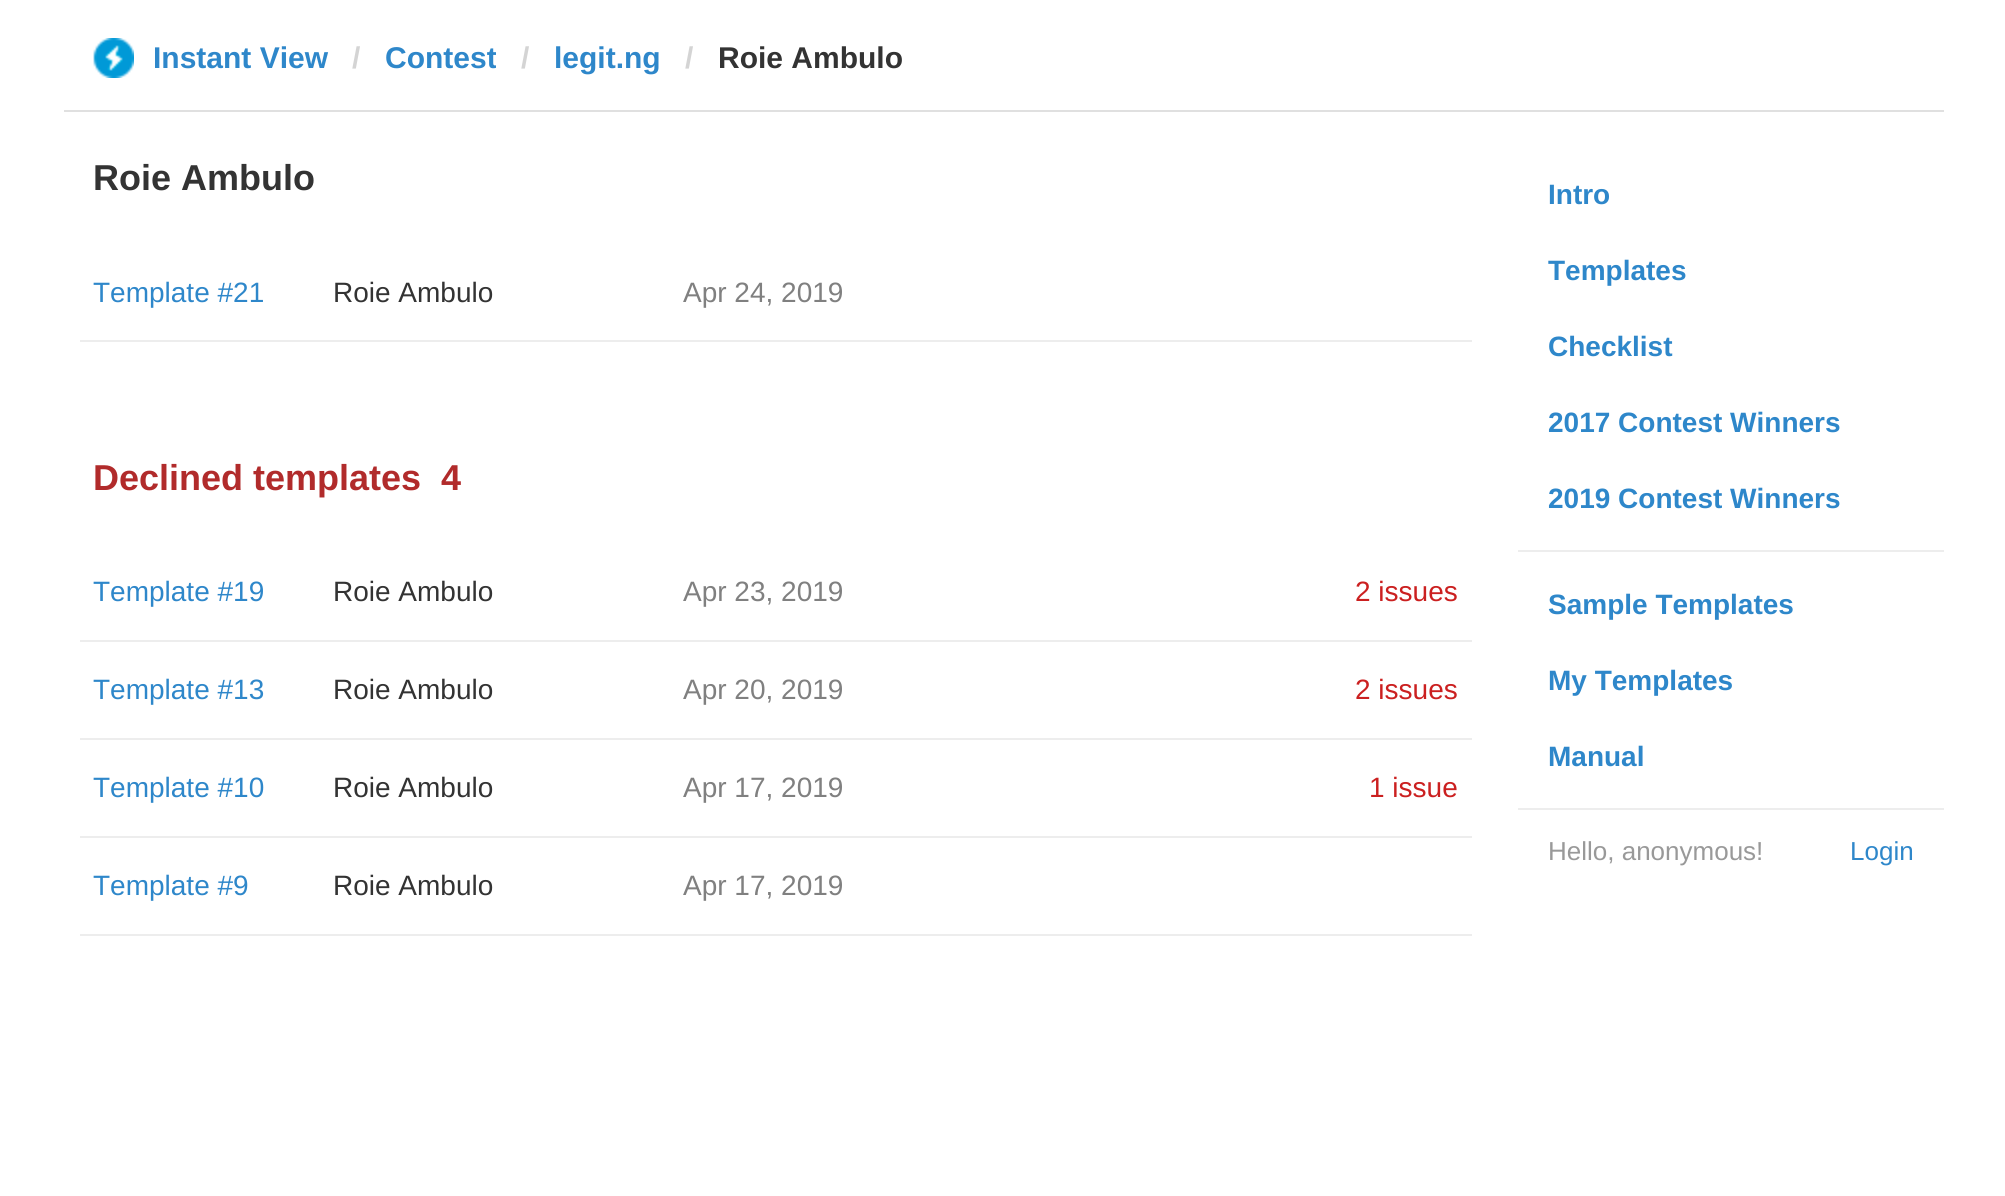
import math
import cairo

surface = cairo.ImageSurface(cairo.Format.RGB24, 2005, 1196)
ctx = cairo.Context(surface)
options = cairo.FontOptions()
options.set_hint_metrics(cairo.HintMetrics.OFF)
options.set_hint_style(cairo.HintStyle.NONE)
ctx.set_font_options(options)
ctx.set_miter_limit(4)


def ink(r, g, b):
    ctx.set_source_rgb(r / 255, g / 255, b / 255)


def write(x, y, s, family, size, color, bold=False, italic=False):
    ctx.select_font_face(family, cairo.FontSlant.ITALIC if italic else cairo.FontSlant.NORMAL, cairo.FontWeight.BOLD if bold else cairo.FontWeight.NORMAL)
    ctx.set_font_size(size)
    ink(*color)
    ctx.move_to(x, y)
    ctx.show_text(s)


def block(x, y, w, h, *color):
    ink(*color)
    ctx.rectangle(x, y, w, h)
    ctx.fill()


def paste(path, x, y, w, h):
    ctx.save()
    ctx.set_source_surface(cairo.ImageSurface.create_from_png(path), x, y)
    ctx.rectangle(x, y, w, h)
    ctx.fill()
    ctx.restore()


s1 = dict(family="Liberation Sans", size=30, color=(46, 135, 202), bold=True)
s2 = dict(family="Liberation Sans", size=30, color=(212, 212, 212), bold=True)
s3 = dict(family="Liberation Sans", size=30, color=(51, 51, 51), bold=True)
s4 = dict(family="Liberation Sans", size=36, color=(51, 51, 51), bold=True)
s5 = dict(family="Liberation Sans", size=28, color=(46, 135, 202))
s6 = dict(family="Liberation Sans", size=28, color=(51, 51, 51))
s7 = dict(family="Liberation Sans", size=28, color=(128, 128, 128))
s8 = dict(family="Liberation Sans", size=36, color=(177, 43, 43), bold=True)
s9 = dict(family="Liberation Sans", size=28, color=(203, 32, 32))
s10 = dict(family="Liberation Sans", size=28, color=(46, 135, 202), bold=True)
s11 = dict(family="Liberation Sans", size=26, color=(153, 153, 153))
s12 = dict(family="Liberation Sans", size=26, color=(46, 135, 202))

ink(255, 255, 255)
ctx.paint()
block(64, 110, 1880, 2, 224, 224, 224)
paste("pic1.png", 93, 38, 41, 40)
write(153, 68, "Instant View", **s1)
write(352, 68, "/", **s2)
ctx.save()
ctx.rectangle(386, 38, 110, 40)
ctx.clip()
write(385, 68, "Contest", **s1)
ctx.restore()
write(521, 68, "/", **s2)
write(554, 68, "legit.ng", **s1)
write(685, 68, "/", **s2)
write(718, 68, "Roie Ambulo", **s3)
write(93, 190, "Roie Ambulo", **s4)
block(80, 340, 1392, 2, 237, 237, 237)
write(93, 302, "Template #21", **s5)
write(333, 302, "Roie Ambulo", **s6)
write(683, 302, "Apr 24, 2019", **s7)
write(93, 490, "Declined templates", **s8)
write(441, 490, "4", **s8)
block(80, 640, 1392, 2, 237, 237, 237)
write(93, 601, "Template #19", **s5)
write(333, 601, "Roie Ambulo", **s6)
write(683, 601, "Apr 23, 2019", **s7)
write(1355, 601, "2 issues", **s9)
block(80, 738, 1392, 2, 237, 237, 237)
write(93, 699, "Template #13", **s5)
write(333, 699, "Roie Ambulo", **s6)
write(683, 699, "Apr 20, 2019", **s7)
write(1355, 699, "2 issues", **s9)
block(80, 836, 1392, 2, 237, 237, 237)
write(93, 797, "Template #10", **s5)
write(333, 797, "Roie Ambulo", **s6)
write(683, 797, "Apr 17, 2019", **s7)
write(1369, 797, "1 issue", **s9)
block(80, 934, 1392, 2, 237, 237, 237)
write(93, 895, "Template #9", **s5)
write(333, 895, "Roie Ambulo", **s6)
write(683, 895, "Apr 17, 2019", **s7)
write(1548, 204, "Intro", **s10)
write(1548, 280, "Templates", **s10)
write(1548, 356, "Checklist", **s10)
write(1548, 432, "2017 Contest Winners", **s10)
write(1548, 508, "2019 Contest Winners", **s10)
block(1518, 550, 426, 2, 237, 237, 237)
write(1548, 614, "Sample Templates", **s10)
write(1548, 690, "My Templates", **s10)
write(1548, 766, "Manual", **s10)
block(1518, 808, 426, 2, 237, 237, 237)
write(1548, 860, "Hello, anonymous!", **s11)
write(1850, 860, "Login", **s12)
surface.write_to_png("screenshot.png")
